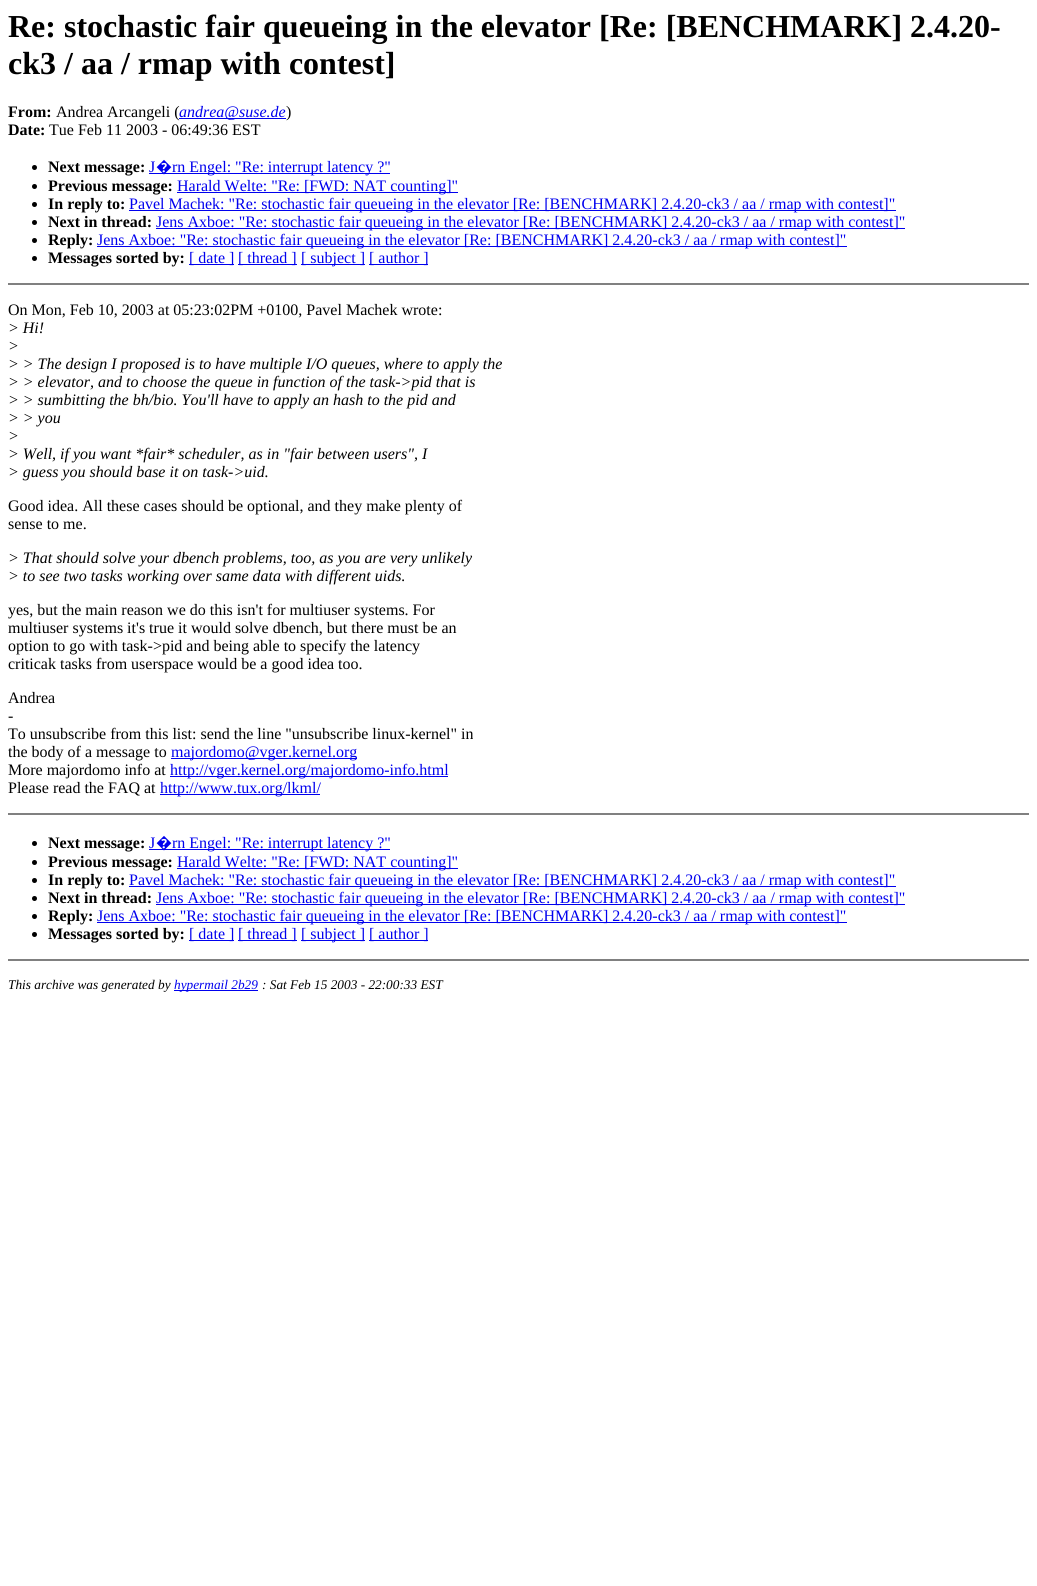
import math
import cairo

surface = cairo.ImageSurface(cairo.Format.RGB24, 1037, 1586)
ctx = cairo.Context(surface)
options = cairo.FontOptions()
options.set_hint_metrics(cairo.HintMetrics.OFF)
options.set_hint_style(cairo.HintStyle.NONE)
ctx.set_font_options(options)
ctx.set_miter_limit(4)


def ink(r, g, b):
    ctx.set_source_rgb(r / 255, g / 255, b / 255)


def write(x, y, s, family, size, color, bold=False, italic=False):
    ctx.select_font_face(family, cairo.FontSlant.ITALIC if italic else cairo.FontSlant.NORMAL, cairo.FontWeight.BOLD if bold else cairo.FontWeight.NORMAL)
    ctx.set_font_size(size)
    ink(*color)
    ctx.move_to(x, y)
    ctx.show_text(s)


def block(x, y, w, h, *color):
    ink(*color)
    ctx.rectangle(x, y, w, h)
    ctx.fill()


s1 = dict(family="Liberation Serif", size=32, color=(0, 0, 0), bold=True)
s2 = dict(family="Liberation Serif", size=16, color=(0, 0, 0), bold=True)
s3 = dict(family="Liberation Serif", size=16, color=(0, 0, 0))
s4 = dict(family="Liberation Serif", size=16, color=(0, 0, 238), italic=True)
s5 = dict(family="Liberation Serif", size=16, color=(0, 0, 238))
s6 = dict(family="Noto Sans", size=16, color=(0, 0, 238))
s7 = dict(family="Liberation Serif", size=16, color=(0, 0, 0), italic=True)
s8 = dict(family="Liberation Serif", size=13.3, color=(0, 0, 0), italic=True)
s9 = dict(family="Liberation Serif", size=13.3, color=(0, 0, 238), italic=True)

ink(255, 255, 255)
ctx.paint()
write(8, 37, "Re: stochastic fair queueing in the elevator [Re: [BENCHMARK] 2.4.20-", **s1)
write(8, 74, "ck3 / aa / rmap with contest]", **s1)
write(8, 117, "From:", **s2)
write(56, 117, "Andrea Arcangeli (", **s3)
block(179, 118, 107, 1, 0, 0, 238)
write(179, 117, "andrea@suse.de", **s4)
write(286, 117, ")", **s3)
write(8, 135, "Date:", **s2)
write(49, 135, "Tue Feb 11 2003 - 06:49:36 EST", **s3)
ctx.new_path()
ctx.arc(34.5, 167.5, 2.5, 0, 2 * math.pi)
ctx.fill()
write(48, 172, "Next message:", **s2)
write(149, 172, "J", **s5)
block(149, 173, 241, 1, 0, 0, 238)
write(156, 172, "�", **s6)
write(172, 172, "rn Engel: \"Re: interrupt latency ?\"", **s5)
ink(0, 0, 0)
ctx.new_path()
ctx.arc(34.5, 186.5, 2.5, 0, 2 * math.pi)
ctx.fill()
write(48, 191, "Previous message:", **s2)
block(177, 192, 281, 1, 0, 0, 238)
write(177, 191, "Harald Welte: \"Re: [FWD: NAT counting]\"", **s5)
ink(0, 0, 0)
ctx.new_path()
ctx.arc(34.5, 204.5, 2.5, 0, 2 * math.pi)
ctx.fill()
write(48, 209, "In reply to:", **s2)
block(129, 210, 767, 1, 0, 0, 238)
write(129, 209, "Pavel Machek: \"Re: stochastic fair queueing in the elevator [Re: [BENCHMARK] 2.4.20-ck3 / aa / rmap with contest]\"", **s5)
ink(0, 0, 0)
ctx.new_path()
ctx.arc(34.5, 222.5, 2.5, 0, 2 * math.pi)
ctx.fill()
write(48, 227, "Next in thread:", **s2)
block(156, 228, 749, 1, 0, 0, 238)
write(156, 227, "Jens Axboe: \"Re: stochastic fair queueing in the elevator [Re: [BENCHMARK] 2.4.20-ck3 / aa / rmap with contest]\"", **s5)
ink(0, 0, 0)
ctx.new_path()
ctx.arc(34.5, 240.5, 2.5, 0, 2 * math.pi)
ctx.fill()
write(48, 245, "Reply:", **s2)
block(97, 246, 750, 1, 0, 0, 238)
write(97, 245, "Jens Axboe: \"Re: stochastic fair queueing in the elevator [Re: [BENCHMARK] 2.4.20-ck3 / aa / rmap with contest]\"", **s5)
ink(0, 0, 0)
ctx.new_path()
ctx.arc(34.5, 258.5, 2.5, 0, 2 * math.pi)
ctx.fill()
write(48, 263, "Messages sorted by:", **s2)
block(189, 264, 45, 1, 0, 0, 238)
write(189, 263, "[ date ]", **s5)
block(238, 264, 59, 1, 0, 0, 238)
write(238, 263, "[ thread ]", **s5)
block(301, 264, 64, 1, 0, 0, 238)
write(301, 263, "[ subject ]", **s5)
block(369, 264, 59, 1, 0, 0, 238)
write(369, 263, "[ author ]", **s5)
block(8, 283, 1021, 2, 128, 128, 128)
write(8, 315, "On Mon, Feb 10, 2003 at 05:23:02PM +0100, Pavel Machek wrote:", **s3)
write(8, 333, "> Hi!", **s7)
write(8, 351, ">", **s7)
write(8, 369, "> > The design I proposed is to have multiple I/O queues, where to apply the", **s7)
write(8, 387, "> > elevator, and to choose the queue in function of the task->pid that is", **s7)
write(8, 405, "> > sumbitting the bh/bio. You'll have to apply an hash to the pid and", **s7)
write(8, 423, "> > you", **s7)
write(8, 441, ">", **s7)
write(8, 459, "> Well, if you want *fair* scheduler, as in \"fair between users\", I", **s7)
write(8, 477, "> guess you should base it on task->uid.", **s7)
write(8, 511, "Good idea. All these cases should be optional, and they make plenty of", **s3)
write(8, 529, "sense to me.", **s3)
write(8, 563, "> That should solve your dbench problems, too, as you are very unlikely", **s7)
write(8, 581, "> to see two tasks working over same data with different uids.", **s7)
write(8, 615, "yes, but the main reason we do this isn't for multiuser systems. For", **s3)
write(8, 633, "multiuser systems it's true it would solve dbench, but there must be an", **s3)
write(8, 651, "option to go with task->pid and being able to specify the latency", **s3)
write(8, 669, "criticak tasks from userspace would be a good idea too.", **s3)
write(8, 703, "Andrea", **s3)
write(8, 721, "-", **s3)
write(8, 739, "To unsubscribe from this list: send the line \"unsubscribe linux-kernel\" in", **s3)
write(8, 757, "the body of a message to", **s3)
block(171, 758, 186, 1, 0, 0, 238)
write(171, 757, "majordomo@vger.kernel.org", **s5)
write(8, 775, "More majordomo info at", **s3)
block(170, 776, 278, 1, 0, 0, 238)
write(170, 775, "http://vger.kernel.org/majordomo-info.html", **s5)
write(8, 793, "Please read the FAQ at", **s3)
block(160, 794, 160, 1, 0, 0, 238)
write(160, 793, "http://www.tux.org/lkml/", **s5)
block(8, 813, 1021, 2, 128, 128, 128)
ink(0, 0, 0)
ctx.new_path()
ctx.arc(34.5, 843.5, 2.5, 0, 2 * math.pi)
ctx.fill()
write(48, 848, "Next message:", **s2)
write(149, 848, "J", **s5)
block(149, 849, 241, 1, 0, 0, 238)
write(156, 848, "�", **s6)
write(172, 848, "rn Engel: \"Re: interrupt latency ?\"", **s5)
ink(0, 0, 0)
ctx.new_path()
ctx.arc(34.5, 862.5, 2.5, 0, 2 * math.pi)
ctx.fill()
write(48, 867, "Previous message:", **s2)
block(177, 868, 281, 1, 0, 0, 238)
write(177, 867, "Harald Welte: \"Re: [FWD: NAT counting]\"", **s5)
ink(0, 0, 0)
ctx.new_path()
ctx.arc(34.5, 880.5, 2.5, 0, 2 * math.pi)
ctx.fill()
write(48, 885, "In reply to:", **s2)
block(129, 886, 767, 1, 0, 0, 238)
write(129, 885, "Pavel Machek: \"Re: stochastic fair queueing in the elevator [Re: [BENCHMARK] 2.4.20-ck3 / aa / rmap with contest]\"", **s5)
ink(0, 0, 0)
ctx.new_path()
ctx.arc(34.5, 898.5, 2.5, 0, 2 * math.pi)
ctx.fill()
write(48, 903, "Next in thread:", **s2)
block(156, 904, 749, 1, 0, 0, 238)
write(156, 903, "Jens Axboe: \"Re: stochastic fair queueing in the elevator [Re: [BENCHMARK] 2.4.20-ck3 / aa / rmap with contest]\"", **s5)
ink(0, 0, 0)
ctx.new_path()
ctx.arc(34.5, 916.5, 2.5, 0, 2 * math.pi)
ctx.fill()
write(48, 921, "Reply:", **s2)
block(97, 922, 750, 1, 0, 0, 238)
write(97, 921, "Jens Axboe: \"Re: stochastic fair queueing in the elevator [Re: [BENCHMARK] 2.4.20-ck3 / aa / rmap with contest]\"", **s5)
ink(0, 0, 0)
ctx.new_path()
ctx.arc(34.5, 934.5, 2.5, 0, 2 * math.pi)
ctx.fill()
write(48, 939, "Messages sorted by:", **s2)
block(189, 940, 45, 1, 0, 0, 238)
write(189, 939, "[ date ]", **s5)
block(238, 940, 59, 1, 0, 0, 238)
write(238, 939, "[ thread ]", **s5)
block(301, 940, 64, 1, 0, 0, 238)
write(301, 939, "[ subject ]", **s5)
block(369, 940, 59, 1, 0, 0, 238)
write(369, 939, "[ author ]", **s5)
block(8, 959, 1021, 2, 128, 128, 128)
write(8, 989, "This archive was generated by", **s8)
block(174, 990, 84, 1, 0, 0, 238)
write(174, 989, "hypermail 2b29", **s9)
write(262, 989, ": Sat Feb 15 2003 - 22:00:33 EST", **s8)
surface.write_to_png("screenshot.png")
